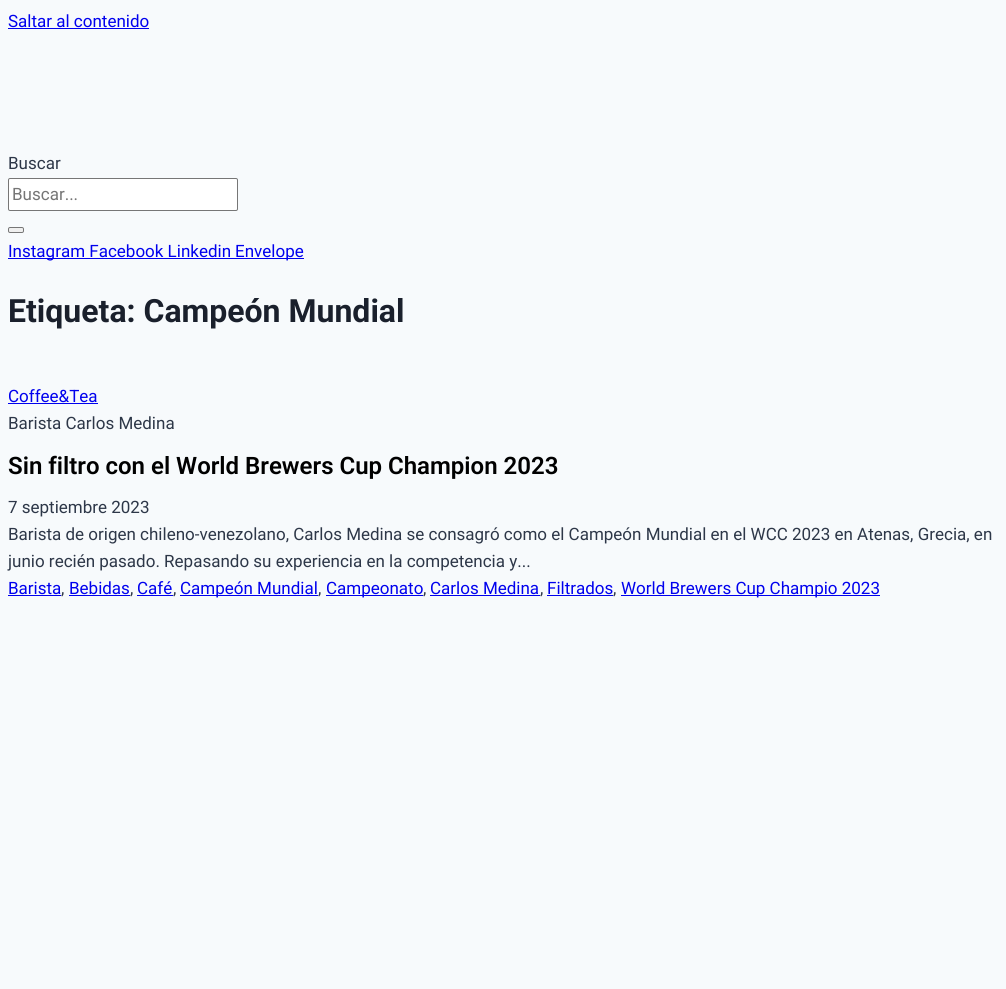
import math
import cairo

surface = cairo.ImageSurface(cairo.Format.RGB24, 1006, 989)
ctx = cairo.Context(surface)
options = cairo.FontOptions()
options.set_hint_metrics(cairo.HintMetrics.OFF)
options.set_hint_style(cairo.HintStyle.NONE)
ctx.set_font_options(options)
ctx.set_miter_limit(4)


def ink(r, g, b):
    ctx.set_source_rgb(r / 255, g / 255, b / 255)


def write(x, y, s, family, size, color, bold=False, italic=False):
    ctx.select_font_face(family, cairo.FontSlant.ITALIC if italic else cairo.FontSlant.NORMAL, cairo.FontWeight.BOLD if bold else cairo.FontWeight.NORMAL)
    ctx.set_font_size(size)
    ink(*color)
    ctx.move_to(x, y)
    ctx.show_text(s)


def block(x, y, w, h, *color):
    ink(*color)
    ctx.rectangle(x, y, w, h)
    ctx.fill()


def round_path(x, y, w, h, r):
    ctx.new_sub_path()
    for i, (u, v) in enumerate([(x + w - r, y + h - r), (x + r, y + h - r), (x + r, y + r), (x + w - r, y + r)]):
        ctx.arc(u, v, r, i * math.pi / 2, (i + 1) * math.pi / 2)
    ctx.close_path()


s1 = dict(family="Roboto", size=17, color=(0, 0, 238))
s2 = dict(family="Roboto", size=17, color=(45, 55, 72))
s3 = dict(family="Roboto", size=17, color=(117, 117, 117))
s4 = dict(family="Roboto", size=32, color=(26, 32, 44), bold=True)
s5 = dict(family="Roboto SemiBold", size=24, color=(0, 0, 0))

ink(247, 250, 252)
ctx.paint()
write(8, 27, "Saltar al contenido", **s1)
block(8, 28, 141, 1, 0, 0, 238)
write(8, 169, "Buscar", **s2)
ink(255, 255, 255)
round_path(8.5, 178.5, 229, 32, 1.5)
ctx.fill_preserve()
ink(118, 118, 118)
ctx.set_line_width(1)
ctx.stroke()
write(12, 200, "Buscar...", **s3)
ink(239, 239, 239)
round_path(8.5, 227.5, 15, 5, 1.5)
ctx.fill_preserve()
ink(118, 118, 118)
ctx.stroke()
block(8, 258, 155, 1, 0, 0, 238)
write(8, 257, "Instagram Facebook Linkedin", **s1)
block(163, 258, 141, 1, 0, 0, 238)
write(235, 257, "Envelope", **s1)
write(8, 322, "Etiqueta: Campeón Mundial", **s4)
write(8, 402, "Coffee&Tea", **s1)
block(8, 403, 90, 1, 0, 0, 238)
write(8, 429, "Barista Carlos Medina", **s2)
write(8, 474, "Sin filtro con el World Brewers Cup Champion 2023", **s5)
write(8, 513, "7 septiembre 2023", **s2)
write(8, 540, "Barista de origen chileno-venezolano, Carlos Medina se consagró como el Campeón Mundial en el WCC 2023 en Atenas, Grecia, en", **s2)
write(8, 567, "junio recién pasado. Repasando su experiencia en la competencia y...", **s2)
write(8, 594, "Barista", **s1)
block(8, 595, 53, 1, 0, 0, 238)
write(61, 594, ",", **s2)
write(69, 594, "Bebidas", **s1)
block(69, 595, 61, 1, 0, 0, 238)
write(130, 594, ",", **s2)
write(137, 594, "Café", **s1)
block(137, 595, 36, 1, 0, 0, 238)
write(173, 594, ",", **s2)
block(180, 595, 138, 1, 0, 0, 238)
write(180, 594, "Campeón Mundial", **s1)
write(318, 594, ",", **s2)
block(326, 595, 97, 1, 0, 0, 238)
write(326, 594, "Campeonato", **s1)
write(423, 594, ",", **s2)
write(430, 594, "Carlos Medina", **s1)
block(430, 595, 110, 1, 0, 0, 238)
write(540, 594, ",", **s2)
write(547, 594, "Filtrados", **s1)
block(547, 595, 66, 1, 0, 0, 238)
write(613, 594, ",", **s2)
block(621, 595, 259, 1, 0, 0, 238)
write(621, 594, "World Brewers Cup Champio 2023", **s1)
surface.write_to_png("screenshot.png")
